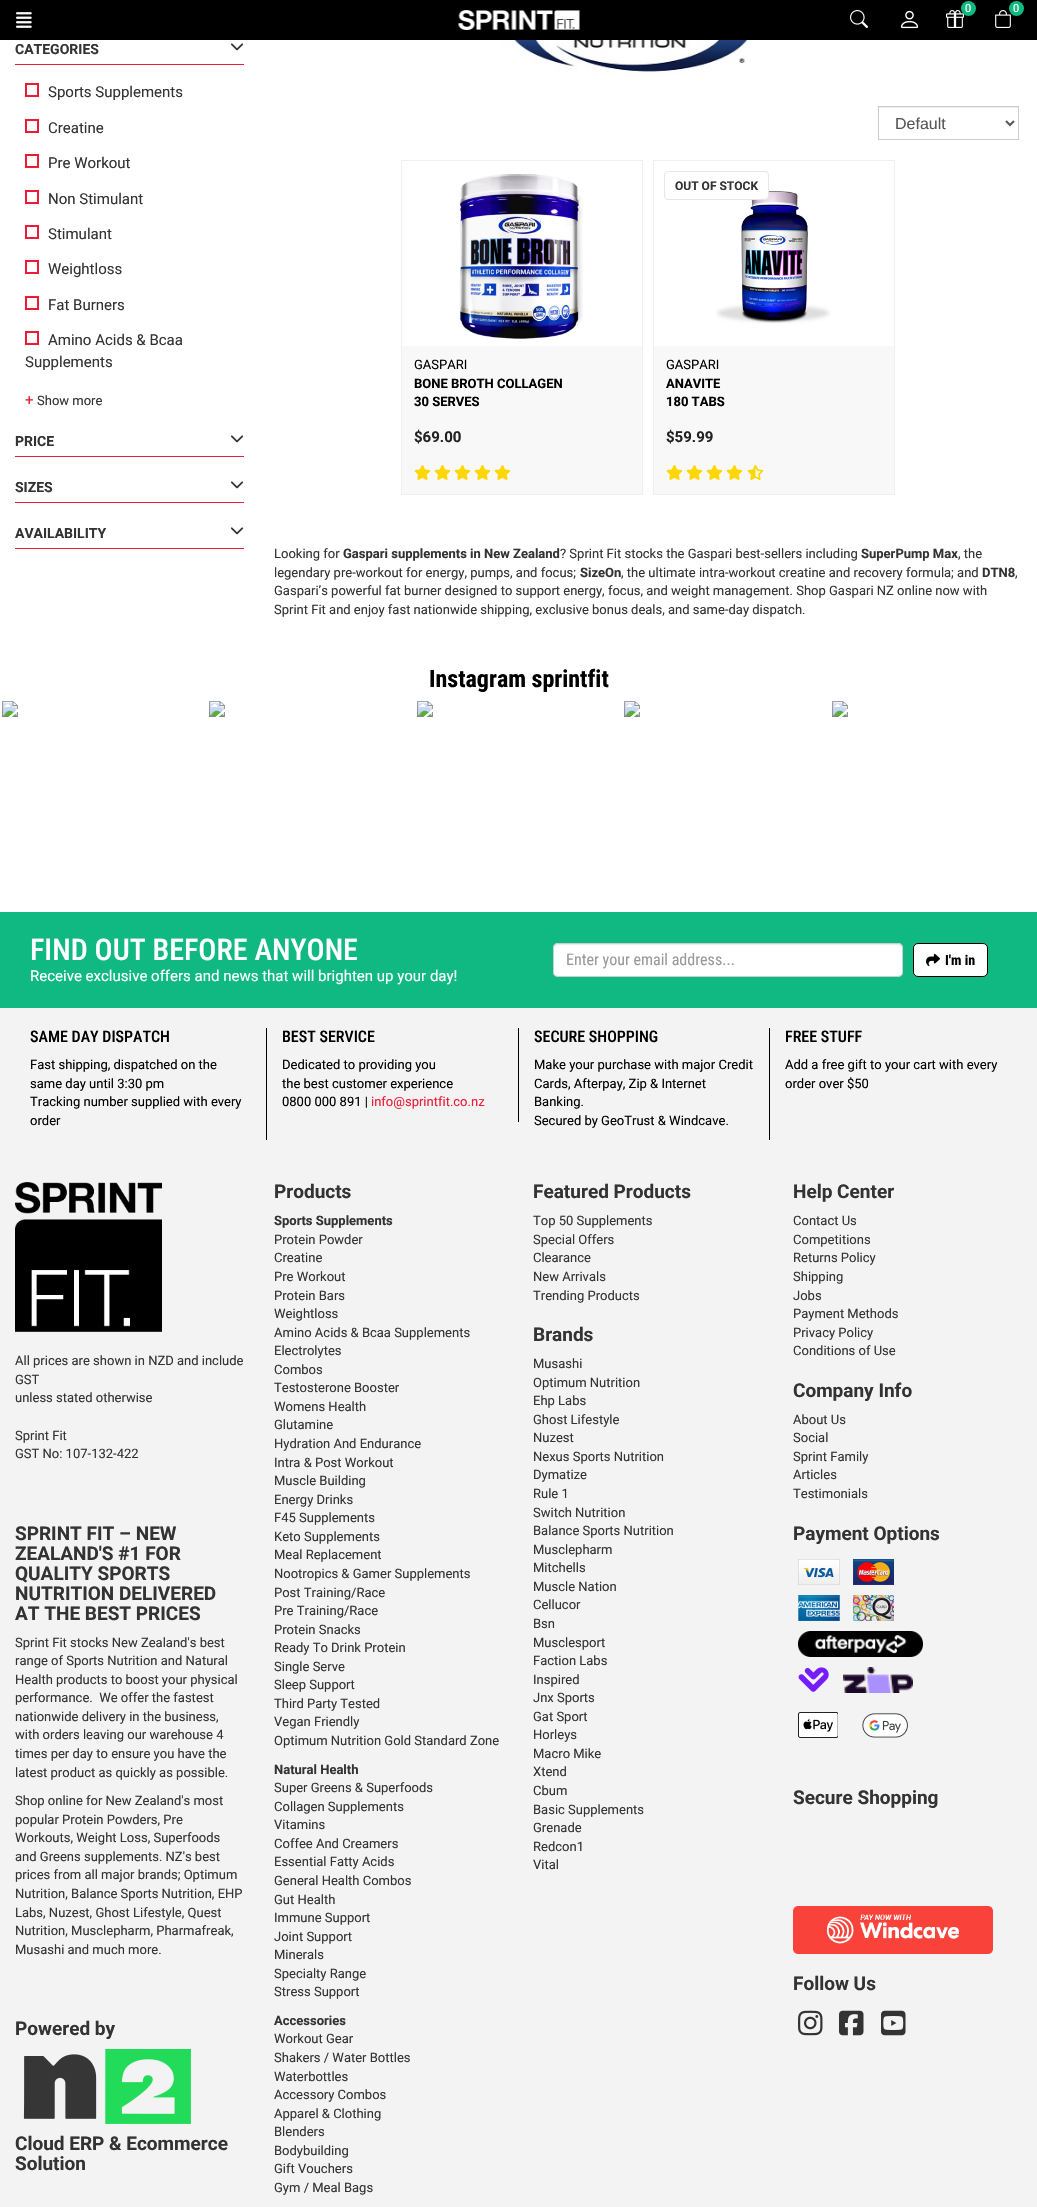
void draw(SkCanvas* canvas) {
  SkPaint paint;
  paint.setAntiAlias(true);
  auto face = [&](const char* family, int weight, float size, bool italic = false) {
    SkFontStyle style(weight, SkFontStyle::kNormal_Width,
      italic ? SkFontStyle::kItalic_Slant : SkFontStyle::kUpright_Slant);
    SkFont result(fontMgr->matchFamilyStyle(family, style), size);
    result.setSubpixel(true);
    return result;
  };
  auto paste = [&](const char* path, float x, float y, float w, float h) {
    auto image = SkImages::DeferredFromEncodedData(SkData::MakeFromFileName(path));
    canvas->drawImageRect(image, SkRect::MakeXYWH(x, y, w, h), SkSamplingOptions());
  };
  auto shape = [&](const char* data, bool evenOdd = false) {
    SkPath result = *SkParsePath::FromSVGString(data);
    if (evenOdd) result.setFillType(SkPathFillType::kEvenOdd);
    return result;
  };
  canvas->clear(0xffffffff);
  paint.setColor(0xff000000);
  canvas->drawRect(SkRect::MakeXYWH(0, 0, 1037, 40), paint);
  paste("img/1.png", 946, 10, 18, 18);
  paint.setColor(0xff10b981);
  canvas->drawCircle(968.5f, 8.5f, 7.5f, paint);
  paste("img/2.png", 995, 10, 16, 18);
  canvas->drawCircle(1016.5f, 8.5f, 7.5f, paint);
  paste("img/3.png", 850, 10, 18, 18);
  paste("img/4.png", 900, 10, 19, 19);
  paste("img/5.png", 16, 12, 16, 16);
  paste("img/6.png", 458, 10, 122, 20);
  paint.setColor(0xffed1b35);
  canvas->drawRect(SkRect::MakeXYWH(15, 64, 229, 1), paint);
  paste("img/7.png", 230, 43, 14, 8);
  paint.setStroke(true);
  paint.setStrokeWidth(2);
  canvas->drawRect(SkRect::MakeXYWH(26, 84, 12, 12), paint);
  canvas->drawRect(SkRect::MakeXYWH(26, 120, 12, 12), paint);
  canvas->drawRect(SkRect::MakeXYWH(26, 155, 12, 12), paint);
  canvas->drawRect(SkRect::MakeXYWH(26, 191, 12, 12), paint);
  canvas->drawRect(SkRect::MakeXYWH(26, 226, 12, 12), paint);
  canvas->drawRect(SkRect::MakeXYWH(26, 261, 12, 12), paint);
  canvas->drawRect(SkRect::MakeXYWH(26, 297, 12, 12), paint);
  canvas->drawRect(SkRect::MakeXYWH(26, 332, 12, 12), paint);
  paint.setStroke(false);
  canvas->drawRect(SkRect::MakeXYWH(15, 456, 229, 1), paint);
  paste("img/7.png", 230, 435, 14, 8);
  canvas->drawRect(SkRect::MakeXYWH(15, 502, 229, 1), paint);
  paste("img/7.png", 230, 481, 14, 8);
  canvas->drawRect(SkRect::MakeXYWH(15, 548, 229, 1), paint);
  paste("img/7.png", 230, 527, 14, 8);
  paste("img/8.png", 502, 40, 251, 35);
  paint.setColor(0xffececec);
  canvas->drawRect(SkRect::MakeXYWH(879, 107, 139, 1), paint);
  paint.setStroke(true);
  paint.setStrokeWidth(1);
  paint.setColor(0xffcccccc);
  canvas->drawRect(SkRect::MakeXYWH(878.5f, 106.5f, 140, 33), paint);
  paint.setStrokeWidth(2);
  paint.setColor(0xff555555);
  canvas->drawPath(shape("M1006 121L1010 125L1014 121"), paint);
  paint.setStrokeWidth(1);
  paint.setColor(0xffefefef);
  canvas->drawRect(SkRect::MakeXYWH(401.5f, 160.5f, 241, 334), paint);
  paste("img/9.png", 459, 174, 124, 165);
  paint.setStroke(false);
  paint.setColor(0xfff8f8f8);
  canvas->drawRect(SkRect::MakeXYWH(402, 346, 240, 148), paint);
  paste("img/10.png", 414, 465, 17, 15);
  paste("img/10.png", 434, 465, 17, 15);
  paste("img/10.png", 454, 465, 17, 15);
  paste("img/10.png", 474, 465, 17, 15);
  paste("img/10.png", 494, 465, 17, 15);
  paint.setStroke(true);
  paint.setColor(0xffefefef);
  canvas->drawRect(SkRect::MakeXYWH(653.5f, 160.5f, 241, 334), paint);
  paste("img/11.png", 716, 191, 115, 133);
  paint.setStroke(false);
  paint.setColor(0xffffffff);
  canvas->drawRoundRect(SkRect::MakeXYWH(664.5f, 171.5f, 104, 28), 3.5f, 3.5f, paint);
  paint.setStroke(true);
  paint.setColor(0xffe6e6e6);
  canvas->drawRoundRect(SkRect::MakeXYWH(664.5f, 171.5f, 104, 28), 3.5f, 3.5f, paint);
  paint.setStroke(false);
  paint.setColor(0xfff8f8f8);
  canvas->drawRect(SkRect::MakeXYWH(654, 346, 240, 148), paint);
  paste("img/10.png", 666, 465, 17, 15);
  paste("img/10.png", 686, 465, 17, 15);
  paste("img/10.png", 706, 465, 17, 15);
  paste("img/10.png", 726, 465, 17, 15);
  paste("img/12.png", 747, 465, 17, 15);
  paste("img/13.png", 2, 701, 846, 16);
  paint.setColor(0xff10b981);
  canvas->drawRect(SkRect::MakeXYWH(0, 912, 1037, 96), paint);
  paint.setColor(0xffffffff);
  canvas->drawRoundRect(SkRect::MakeXYWH(553, 943, 350, 34), 5, 5, paint);
  paint.setColor(0xffececec);
  canvas->drawPath(shape("M558 945H898C900 945 902 947 902 949V948C902 946 900 944 898 944H558C556 944 554 946 554 948V949C554 947 556 945 558 945Z"), paint);
  paint.setStroke(true);
  paint.setColor(0xffcccccc);
  canvas->drawRoundRect(SkRect::MakeXYWH(553.5f, 943.5f, 349, 33), 4.5f, 4.5f, paint);
  paint.setStroke(false);
  paint.setColor(0xffffffff);
  canvas->drawRoundRect(SkRect::MakeXYWH(913.5f, 943.5f, 74, 33), 4.5f, 4.5f, paint);
  paint.setStroke(true);
  paint.setColor(0xff000000);
  canvas->drawRoundRect(SkRect::MakeXYWH(913.5f, 943.5f, 74, 33), 4.5f, 4.5f, paint);
  paste("img/14.png", 926, 953, 14, 14);
  paint.setStroke(false);
  {
    const struct { float x, y, w, h; SkColor color; } items[] = {
      {0, 1008, 1037, 1199, 0xfff3f3f3},
      {266, 1028, 1, 112, 0xff000000},
      {518, 1028, 1, 94, 0xff000000},
      {769, 1028, 1, 112, 0xff000000},
    };
    for (auto [x, y, w, h, color] : items) {
      paint.setColor(color);
      canvas->drawRect(SkRect::MakeXYWH(x, y, w, h), paint);
    }
  }
  paste("img/15.png", 15, 1182, 147, 150);
  paste("img/16.png", 23, 2049, 168, 75);
  paste("img/17.png", 798, 1559, 42, 26);
  paste("img/18.png", 853, 1559, 41, 26);
  paste("img/19.png", 798, 1595, 42, 26);
  paste("img/20.png", 853, 1595, 41, 26);
  paste("img/21.png", 798, 1631, 125, 26);
  paste("img/22.png", 798, 1667, 31, 25);
  paste("img/23.png", 843, 1667, 70, 26);
  paste("img/24.png", 798, 1712, 40, 26);
  paste("img/25.png", 862, 1713, 46, 25);
  paste("img/26.png", 793, 1906, 200, 48);
  paste("img/27.png", 798, 2010, 25, 26);
  paste("img/28.png", 839, 2010, 25, 26);
  paste("img/29.png", 881, 2010, 25, 26);
  auto f0 = face("Roboto", 400, 11);
  paint.setColor(0xffffffff);
  canvas->drawString("0", 965, 12, f0, paint);
  canvas->drawString("0", 1013, 12, f0, paint);
  auto f1 = face("Roboto", 700, 14);
  paint.setColor(0xff333333);
  canvas->drawString("CATEGORIES", 15, 54, f1, paint);
  auto f2 = face("Roboto", 400, 15);
  {
    const struct { const char* s; float x, y; } items[] = {
      {"Sports Supplements", 48, 97},
      {"Creatine", 48, 133},
      {"Pre Workout", 48, 168},
      {"Non Stimulant", 48, 204},
      {"Stimulant", 48, 239},
      {"Weightloss", 48, 274},
      {"Fat Burners", 48, 310},
      {"Amino Acids & Bcaa", 48, 345},
      {"Supplements", 25, 367},
    };
    for (auto [s, x, y] : items) {
      canvas->drawString(s, x, y, f2, paint);
    }
  }
  paint.setColor(0xffed1b35);
  canvas->drawString("+", 25, 405, f2, paint);
  auto f3 = face("Roboto", 400, 13);
  paint.setColor(0xff333333);
  canvas->drawString("Show more", 37, 405, f3, paint);
  {
    const struct { const char* s; float x, y; } items[] = {
      {"PRICE", 15, 446},
      {"SIZES", 15, 492},
      {"AVAILABILITY", 15, 538},
    };
    for (auto [s, x, y] : items) {
      canvas->drawString(s, x, y, f1, paint);
    }
  }
  auto f4 = face("Liberation Sans", 400, 16);
  paint.setColor(0xff555555);
  canvas->drawString("Default", 895, 129, f4, paint);
  paint.setColor(0xff000000);
  canvas->drawString("GASPARI", 414, 369, f3, paint);
  auto f5 = face("Roboto", 700, 13);
  canvas->drawString("BONE BROTH COLLAGEN", 414, 388, f5, paint);
  canvas->drawString("30 SERVES", 414, 406, f5, paint);
  auto f6 = face("Roboto", 700, 15);
  paint.setColor(0xff222222);
  canvas->drawString("$69.00", 414, 442, f6, paint);
  auto f7 = face("Roboto", 700, 12);
  paint.setColor(0xff333333);
  canvas->drawString("OUT OF STOCK", 675, 190, f7, paint);
  paint.setColor(0xff000000);
  canvas->drawString("GASPARI", 666, 369, f3, paint);
  canvas->drawString("ANAVITE", 666, 388, f5, paint);
  canvas->drawString("180 TABS", 666, 406, f5, paint);
  paint.setColor(0xff222222);
  canvas->drawString("$59.99", 666, 442, f6, paint);
  paint.setColor(0xff333333);
  canvas->drawString("Looking for", 274, 558, f3, paint);
  canvas->drawString("Gaspari supplements in New Zealand", 343, 558, f5, paint);
  canvas->drawString("? Sprint Fit stocks the Gaspari best-sellers including", 560, 558, f3, paint);
  canvas->drawString("SuperPump Max", 861, 558, f5, paint);
  canvas->drawString(", the", 958, 558, f3, paint);
  canvas->drawString("legendary pre-workout for energy, pumps, and focus;", 274, 577, f3, paint);
  canvas->drawString("SizeOn", 580, 577, f5, paint);
  canvas->drawString(", the ultimate intra-workout creatine and recovery formula; and", 621, 577, f3, paint);
  canvas->drawString("DTN8", 982, 577, f5, paint);
  {
    const struct { const char* s; float x, y; } items[] = {
      {",", 1015, 577},
      {"Gaspari’s powerful fat burner designed to support energy, focus, and weight management. Shop Gaspari NZ online now with", 274, 595},
      {"Sprint Fit and enjoy fast nationwide shipping, exclusive bonus deals, and same-day dispatch.", 274, 614},
    };
    for (auto [s, x, y] : items) {
      canvas->drawString(s, x, y, f3, paint);
    }
  }
  auto f8 = face("Roboto Condensed", 700, 24);
  paint.setColor(0xff000000);
  canvas->drawString("Instagram sprintfit", 429, 687, f8, paint);
  auto f9 = face("Roboto Condensed", 500, 30);
  paint.setColor(0xffffffff);
  canvas->drawString("FIND OUT BEFORE ANYONE", 30, 960, f9, paint);
  canvas->drawString("Receive exclusive offers and news that will brighten up your day!", 30, 981, f2, paint);
  auto f10 = face("Roboto Condensed", 400, 16);
  paint.setColor(0xff999999);
  canvas->drawString("Enter your email address...", 566, 965, f10, paint);
  auto f11 = face("Roboto Condensed", 700, 14);
  paint.setColor(0xff000000);
  canvas->drawString("I'm in", 945, 965, f11, paint);
  auto f12 = face("Roboto Condensed", 500, 16);
  canvas->drawString("SAME DAY DISPATCH", 30, 1042, f12, paint);
  {
    const struct { const char* s; float x, y; } items[] = {
      {"Fast shipping, dispatched on the", 30, 1069},
      {"same day until 3:30 pm", 30, 1088},
      {"Tracking number supplied with every", 30, 1106},
      {"order", 30, 1125},
    };
    for (auto [s, x, y] : items) {
      canvas->drawString(s, x, y, f3, paint);
    }
  }
  canvas->drawString("BEST SERVICE", 282, 1042, f12, paint);
  {
    const struct { const char* s; float x, y; } items[] = {
      {"Dedicated to providing you", 282, 1069},
      {"the best customer experience", 282, 1088},
      {"0800 000 891 |", 282, 1106},
    };
    for (auto [s, x, y] : items) {
      canvas->drawString(s, x, y, f3, paint);
    }
  }
  paint.setColor(0xffed1b35);
  canvas->drawString("info@sprintfit.co.nz", 371, 1106, f3, paint);
  paint.setColor(0xff000000);
  canvas->drawString("SECURE SHOPPING", 534, 1042, f12, paint);
  {
    const struct { const char* s; float x, y; } items[] = {
      {"Make your purchase with major Credit", 534, 1069},
      {"Cards, Afterpay, Zip & Internet", 534, 1088},
      {"Banking.", 534, 1106},
      {"Secured by GeoTrust & Windcave.", 534, 1125},
    };
    for (auto [s, x, y] : items) {
      canvas->drawString(s, x, y, f3, paint);
    }
  }
  canvas->drawString("FREE STUFF", 785, 1042, f12, paint);
  canvas->drawString("Add a free gift to your cart with every", 785, 1069, f3, paint);
  canvas->drawString("order over $50", 785, 1088, f3, paint);
  paint.setColor(0xff333333);
  {
    const struct { const char* s; float x, y; } items[] = {
      {"All prices are shown in NZD and include", 15, 1365},
      {"GST", 15, 1384},
      {"unless stated otherwise", 15, 1402},
      {"Sprint Fit", 15, 1440},
      {"GST No: 107-132-422", 15, 1458},
    };
    for (auto [s, x, y] : items) {
      canvas->drawString(s, x, y, f3, paint);
    }
  }
  auto f13 = face("Roboto", 700, 19);
  {
    const struct { const char* s; float x, y; } items[] = {
      {"SPRINT FIT – NEW", 15, 1540},
      {"ZEALAND'S #1 FOR", 15, 1560},
      {"QUALITY SPORTS", 15, 1580},
      {"NUTRITION DELIVERED", 15, 1600},
      {"AT THE BEST PRICES", 15, 1620},
    };
    for (auto [s, x, y] : items) {
      canvas->drawString(s, x, y, f13, paint);
    }
  }
  {
    const struct { const char* s; float x, y; } items[] = {
      {"Sprint Fit stocks New Zealand's best", 15, 1647},
      {"range of Sports Nutrition and Natural", 15, 1665},
      {"Health products to boost your physical", 15, 1684},
      {"performance.  We offer the fastest", 15, 1702},
      {"nationwide delivery in the business,", 15, 1721},
      {"with orders leaving our warehouse 4", 15, 1739},
      {"times per day to ensure you have the", 15, 1758},
      {"latest product as quickly as possible.", 15, 1777},
      {"Shop online for New Zealand's most", 15, 1805},
      {"popular Protein Powders, Pre", 15, 1824},
      {"Workouts, Weight Loss, Superfoods", 15, 1842},
      {"and Greens supplements. NZ's best", 15, 1861},
      {"prices from all major brands; Optimum", 15, 1879},
      {"Nutrition, Balance Sports Nutrition, EHP", 15, 1898},
      {"Labs, Nuzest, Ghost Lifestyle, Quest", 15, 1917},
      {"Nutrition, Musclepharm, Pharmafreak,", 15, 1935},
      {"Musashi and much more.", 15, 1954},
    };
    for (auto [s, x, y] : items) {
      canvas->drawString(s, x, y, f3, paint);
    }
  }
  {
    const struct { const char* s; float x, y; } items[] = {
      {"Powered by", 15, 2035},
      {"Cloud ERP & Ecommerce", 15, 2150},
      {"Solution", 15, 2170},
      {"Products", 274, 1198},
    };
    for (auto [s, x, y] : items) {
      canvas->drawString(s, x, y, f13, paint);
    }
  }
  canvas->drawString("Sports Supplements", 274, 1225, f5, paint);
  {
    const struct { const char* s; float x, y; } items[] = {
      {"Protein Powder", 274, 1244},
      {"Creatine", 274, 1262},
      {"Pre Workout", 274, 1281},
      {"Protein Bars", 274, 1300},
      {"Weightloss", 274, 1318},
      {"Amino Acids & Bcaa Supplements", 274, 1337},
      {"Electrolytes", 274, 1355},
      {"Combos", 274, 1374},
      {"Testosterone Booster", 274, 1392},
      {"Womens Health", 274, 1411},
      {"Glutamine", 274, 1429},
      {"Hydration And Endurance", 274, 1448},
      {"Intra & Post Workout", 274, 1467},
      {"Muscle Building", 274, 1485},
      {"Energy Drinks", 274, 1504},
      {"F45 Supplements", 274, 1522},
      {"Keto Supplements", 274, 1541},
      {"Meal Replacement", 274, 1559},
      {"Nootropics & Gamer Supplements", 274, 1578},
      {"Post Training/Race", 274, 1597},
      {"Pre Training/Race", 274, 1615},
      {"Protein Snacks", 274, 1634},
      {"Ready To Drink Protein", 274, 1652},
      {"Single Serve", 274, 1671},
      {"Sleep Support", 274, 1689},
      {"Third Party Tested", 274, 1708},
      {"Vegan Friendly", 274, 1726},
      {"Optimum Nutrition Gold Standard Zone", 274, 1745},
    };
    for (auto [s, x, y] : items) {
      canvas->drawString(s, x, y, f3, paint);
    }
  }
  canvas->drawString("Natural Health", 274, 1774, f5, paint);
  {
    const struct { const char* s; float x, y; } items[] = {
      {"Super Greens & Superfoods", 274, 1792},
      {"Collagen Supplements", 274, 1811},
      {"Vitamins", 274, 1829},
      {"Coffee And Creamers", 274, 1848},
      {"Essential Fatty Acids", 274, 1866},
      {"General Health Combos", 274, 1885},
      {"Gut Health", 274, 1904},
      {"Immune Support", 274, 1922},
      {"Joint Support", 274, 1941},
      {"Minerals", 274, 1959},
      {"Specialty Range", 274, 1978},
      {"Stress Support", 274, 1996},
    };
    for (auto [s, x, y] : items) {
      canvas->drawString(s, x, y, f3, paint);
    }
  }
  canvas->drawString("Accessories", 274, 2025, f5, paint);
  {
    const struct { const char* s; float x, y; } items[] = {
      {"Workout Gear", 274, 2043},
      {"Shakers / Water Bottles", 274, 2062},
      {"Waterbottles", 274, 2081},
      {"Accessory Combos", 274, 2099},
      {"Apparel & Clothing", 274, 2118},
      {"Blenders", 274, 2136},
      {"Bodybuilding", 274, 2155},
      {"Gift Vouchers", 274, 2173},
      {"Gym / Meal Bags", 274, 2192},
    };
    for (auto [s, x, y] : items) {
      canvas->drawString(s, x, y, f3, paint);
    }
  }
  canvas->drawString("Featured Products", 533, 1198, f13, paint);
  {
    const struct { const char* s; float x, y; } items[] = {
      {"Top 50 Supplements", 533, 1225},
      {"Special Offers", 533, 1244},
      {"Clearance", 533, 1262},
      {"New Arrivals", 533, 1281},
      {"Trending Products", 533, 1300},
    };
    for (auto [s, x, y] : items) {
      canvas->drawString(s, x, y, f3, paint);
    }
  }
  canvas->drawString("Brands", 533, 1341, f13, paint);
  {
    const struct { const char* s; float x, y; } items[] = {
      {"Musashi", 533, 1368},
      {"Optimum Nutrition", 533, 1387},
      {"Ehp Labs", 533, 1405},
      {"Ghost Lifestyle", 533, 1424},
      {"Nuzest", 533, 1442},
      {"Nexus Sports Nutrition", 533, 1461},
      {"Dymatize", 533, 1479},
      {"Rule 1", 533, 1498},
      {"Switch Nutrition", 533, 1517},
      {"Balance Sports Nutrition", 533, 1535},
      {"Musclepharm", 533, 1554},
      {"Mitchells", 533, 1572},
      {"Muscle Nation", 533, 1591},
      {"Cellucor", 533, 1609},
      {"Bsn", 533, 1628},
      {"Musclesport", 533, 1647},
      {"Faction Labs", 533, 1665},
      {"Inspired", 533, 1684},
      {"Jnx Sports", 533, 1702},
      {"Gat Sport", 533, 1721},
      {"Horleys", 533, 1739},
      {"Macro Mike", 533, 1758},
      {"Xtend", 533, 1776},
      {"Cbum", 533, 1795},
      {"Basic Supplements", 533, 1814},
      {"Grenade", 533, 1832},
      {"Redcon1", 533, 1851},
      {"Vital", 533, 1869},
    };
    for (auto [s, x, y] : items) {
      canvas->drawString(s, x, y, f3, paint);
    }
  }
  canvas->drawString("Help Center", 793, 1198, f13, paint);
  {
    const struct { const char* s; float x, y; } items[] = {
      {"Contact Us", 793, 1225},
      {"Competitions", 793, 1244},
      {"Returns Policy", 793, 1262},
      {"Shipping", 793, 1281},
      {"Jobs", 793, 1300},
      {"Payment Methods", 793, 1318},
      {"Privacy Policy", 793, 1337},
      {"Conditions of Use", 793, 1355},
    };
    for (auto [s, x, y] : items) {
      canvas->drawString(s, x, y, f3, paint);
    }
  }
  canvas->drawString("Company Info", 793, 1397, f13, paint);
  {
    const struct { const char* s; float x, y; } items[] = {
      {"About Us", 793, 1424},
      {"Social", 793, 1442},
      {"Sprint Family", 793, 1461},
      {"Articles", 793, 1479},
      {"Testimonials", 793, 1498},
    };
    for (auto [s, x, y] : items) {
      canvas->drawString(s, x, y, f3, paint);
    }
  }
  {
    const struct { const char* s; float x, y; } items[] = {
      {"Payment Options", 793, 1540},
      {"Secure Shopping", 793, 1804},
      {"Follow Us", 793, 1990},
    };
    for (auto [s, x, y] : items) {
      canvas->drawString(s, x, y, f13, paint);
    }
  }
}
